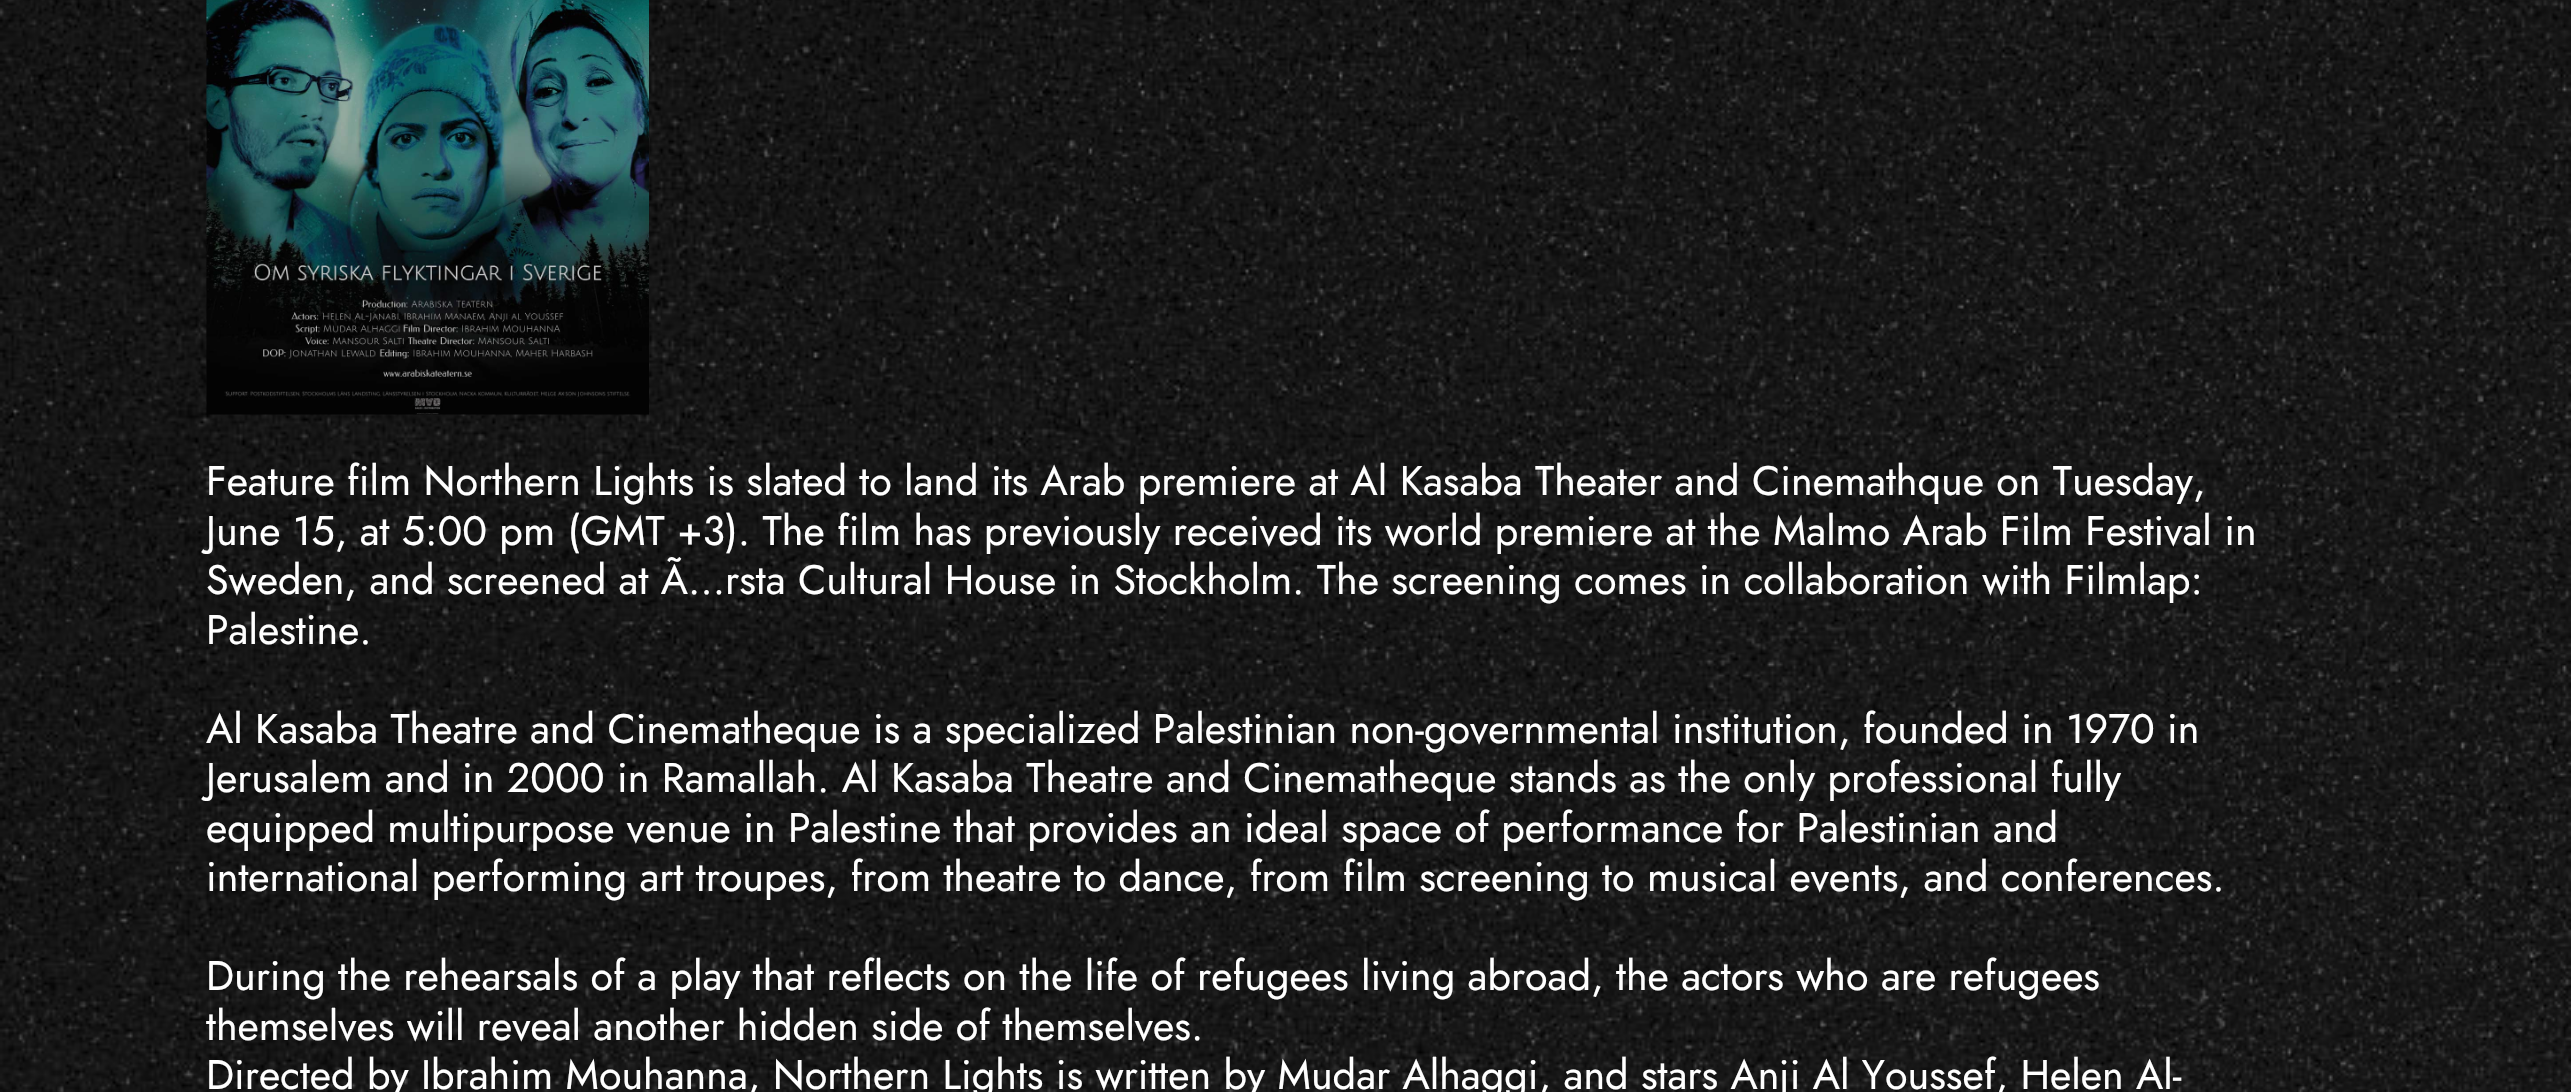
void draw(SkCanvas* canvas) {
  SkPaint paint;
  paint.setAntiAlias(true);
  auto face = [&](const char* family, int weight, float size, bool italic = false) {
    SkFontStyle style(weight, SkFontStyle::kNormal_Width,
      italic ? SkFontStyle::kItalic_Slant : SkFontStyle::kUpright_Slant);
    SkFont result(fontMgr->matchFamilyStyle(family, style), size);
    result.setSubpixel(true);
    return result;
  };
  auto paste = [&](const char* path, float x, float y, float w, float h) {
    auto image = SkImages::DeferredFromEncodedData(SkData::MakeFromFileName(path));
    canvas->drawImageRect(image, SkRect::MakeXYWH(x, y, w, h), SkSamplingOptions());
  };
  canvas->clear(0xffffffff);
  paste("img/1.png", 0, 0, 2571, 1092);
  paste("img/2.png", 206, 0, 443, 415);
  auto f0 = face("Jost", 400, 41.25f);
  paint.setColor(0xffffffff);
  {
    const struct { const char* s; float x, y; } items[] = {
      {"Feature film Northern Lights is slated to land its Arab premiere at Al Kasaba Theater and Cinemathque on Tuesday,", 206, 495},
      {"June 15, at 5:00 pm (GMT +3). The film has previously received its world premiere at the Malmo Arab Film Festival in", 206, 545},
      {"Sweden, and screened at Ã…rsta Cultural House in Stockholm. The screening comes in collaboration with Filmlap:", 206, 594},
      {"Palestine.", 206, 644},
      {"Al Kasaba Theatre and Cinematheque is a specialized Palestinian non-governmental institution, founded in 1970 in", 206, 743},
      {"Jerusalem and in 2000 in Ramallah. Al Kasaba Theatre and Cinematheque stands as the only professional fully", 206, 792},
      {"equipped multipurpose venue in Palestine that provides an ideal space of performance for Palestinian and", 206, 842},
      {"international performing art troupes, from theatre to dance, from film screening to musical events, and conferences.", 206, 891},
      {"During the rehearsals of a play that reflects on the life of refugees living abroad, the actors who are refugees", 206, 990},
      {"themselves will reveal another hidden side of themselves.", 206, 1040},
      {"Directed by Ibrahim Mouhanna, Northern Lights is written by Mudar Alhaggi, and stars Anji Al Youssef, Helen Al-", 206, 1089},
    };
    for (auto [s, x, y] : items) {
      canvas->drawString(s, x, y, f0, paint);
    }
  }
}
